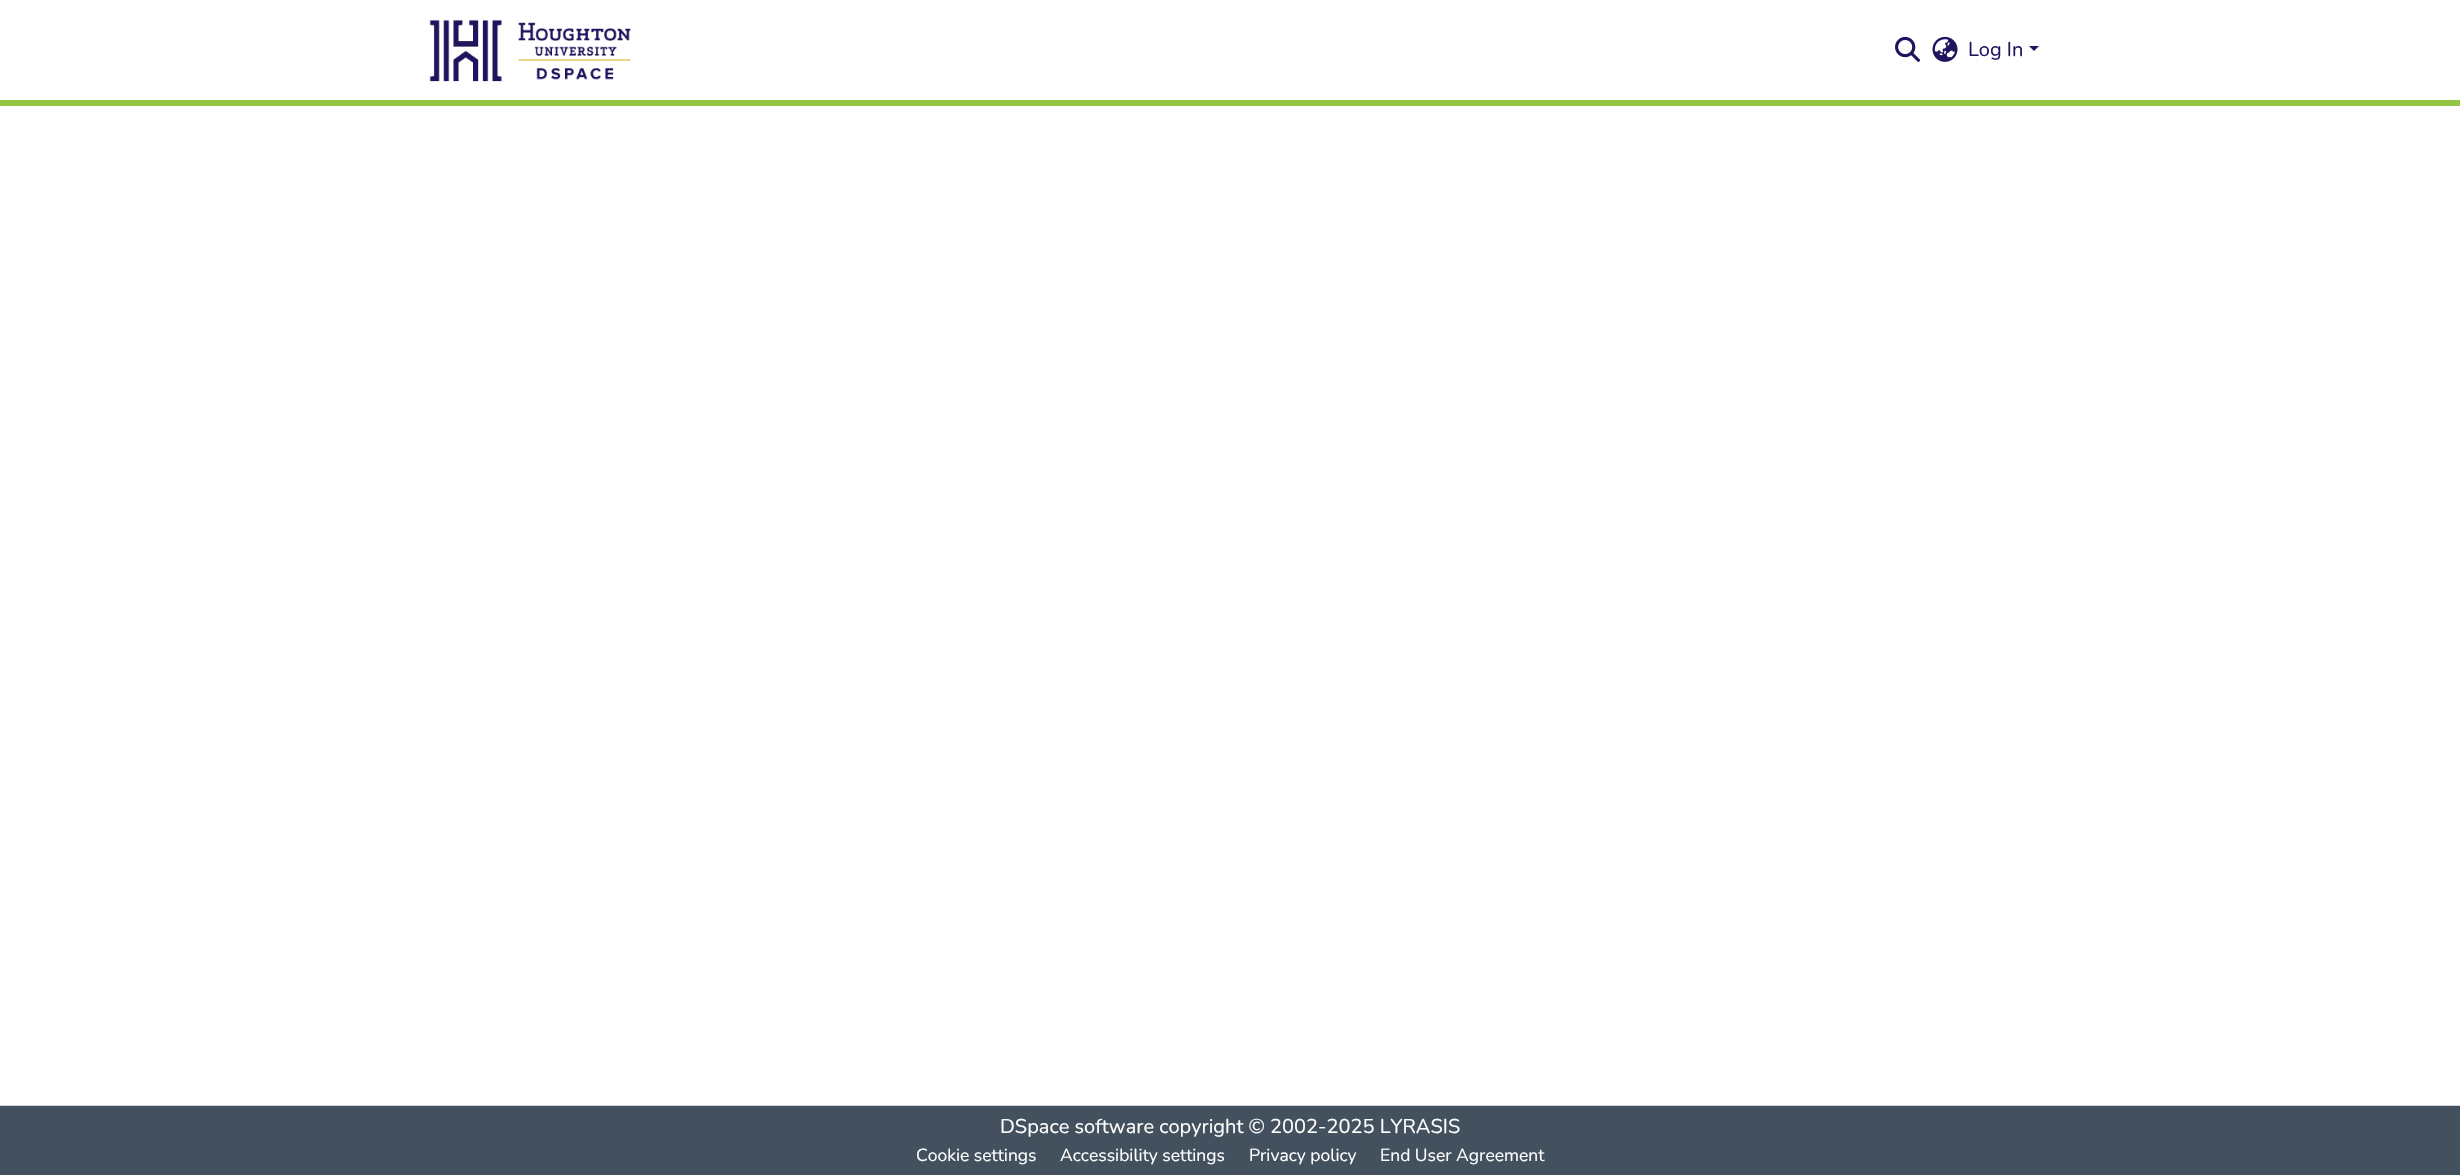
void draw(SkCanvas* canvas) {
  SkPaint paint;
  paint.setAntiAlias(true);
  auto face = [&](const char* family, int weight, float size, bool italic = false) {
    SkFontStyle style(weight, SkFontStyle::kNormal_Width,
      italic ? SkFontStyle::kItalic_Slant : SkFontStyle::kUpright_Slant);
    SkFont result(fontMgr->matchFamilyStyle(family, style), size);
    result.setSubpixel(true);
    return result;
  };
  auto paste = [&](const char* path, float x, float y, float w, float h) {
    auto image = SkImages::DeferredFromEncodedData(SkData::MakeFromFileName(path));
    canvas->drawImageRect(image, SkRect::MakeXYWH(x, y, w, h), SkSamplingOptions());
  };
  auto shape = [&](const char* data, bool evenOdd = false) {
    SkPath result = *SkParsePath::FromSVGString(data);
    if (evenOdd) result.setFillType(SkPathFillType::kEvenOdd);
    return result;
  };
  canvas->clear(0xffffffff);
  paint.setColor(0xff92c642);
  canvas->drawRect(SkRect::MakeXYWH(0, 100, 2460, 6), paint);
  paste("img/1.png", 429, 19, 202, 63);
  paste("img/2.png", 1895, 36, 25, 26);
  paste("img/3.png", 1932, 36, 26, 26);
  paint.setColor(0xff1f145d);
  canvas->drawPath(shape("M2029 46H2039L2034 51Z"), paint);
  {
    const struct { float x, y, w, h; SkColor color; } items[] = {
      {0, 1106, 2460, 69, 0xff43515f},
      {0, 1105, 2460, 1, 0xffced4da},
      {1048, 1141, 1, 29, 0xff495057},
      {1236, 1141, 1, 29, 0xff495057},
      {1368, 1141, 1, 29, 0xff495057},
    };
    for (auto [x, y, w, h, color] : items) {
      paint.setColor(color);
      canvas->drawRect(SkRect::MakeXYWH(x, y, w, h), paint);
    }
  }
  auto f0 = face("Nunito", 400, 20);
  paint.setColor(0xff1f145d);
  canvas->drawString("Log In", 1968, 56, f0, paint);
  paint.setColor(0xffffffff);
  canvas->drawString("DSpace software copyright © 2002-2025 LYRASIS", 1000, 1133, f0, paint);
  auto f1 = face("Nunito", 400, 17.5f);
  {
    const struct { const char* s; float x, y; } items[] = {
      {"Cookie settings", 916, 1161},
      {"Accessibility settings", 1060, 1161},
      {"Privacy policy", 1249, 1161},
      {"End User Agreement", 1380, 1161},
    };
    for (auto [s, x, y] : items) {
      canvas->drawString(s, x, y, f1, paint);
    }
  }
}
